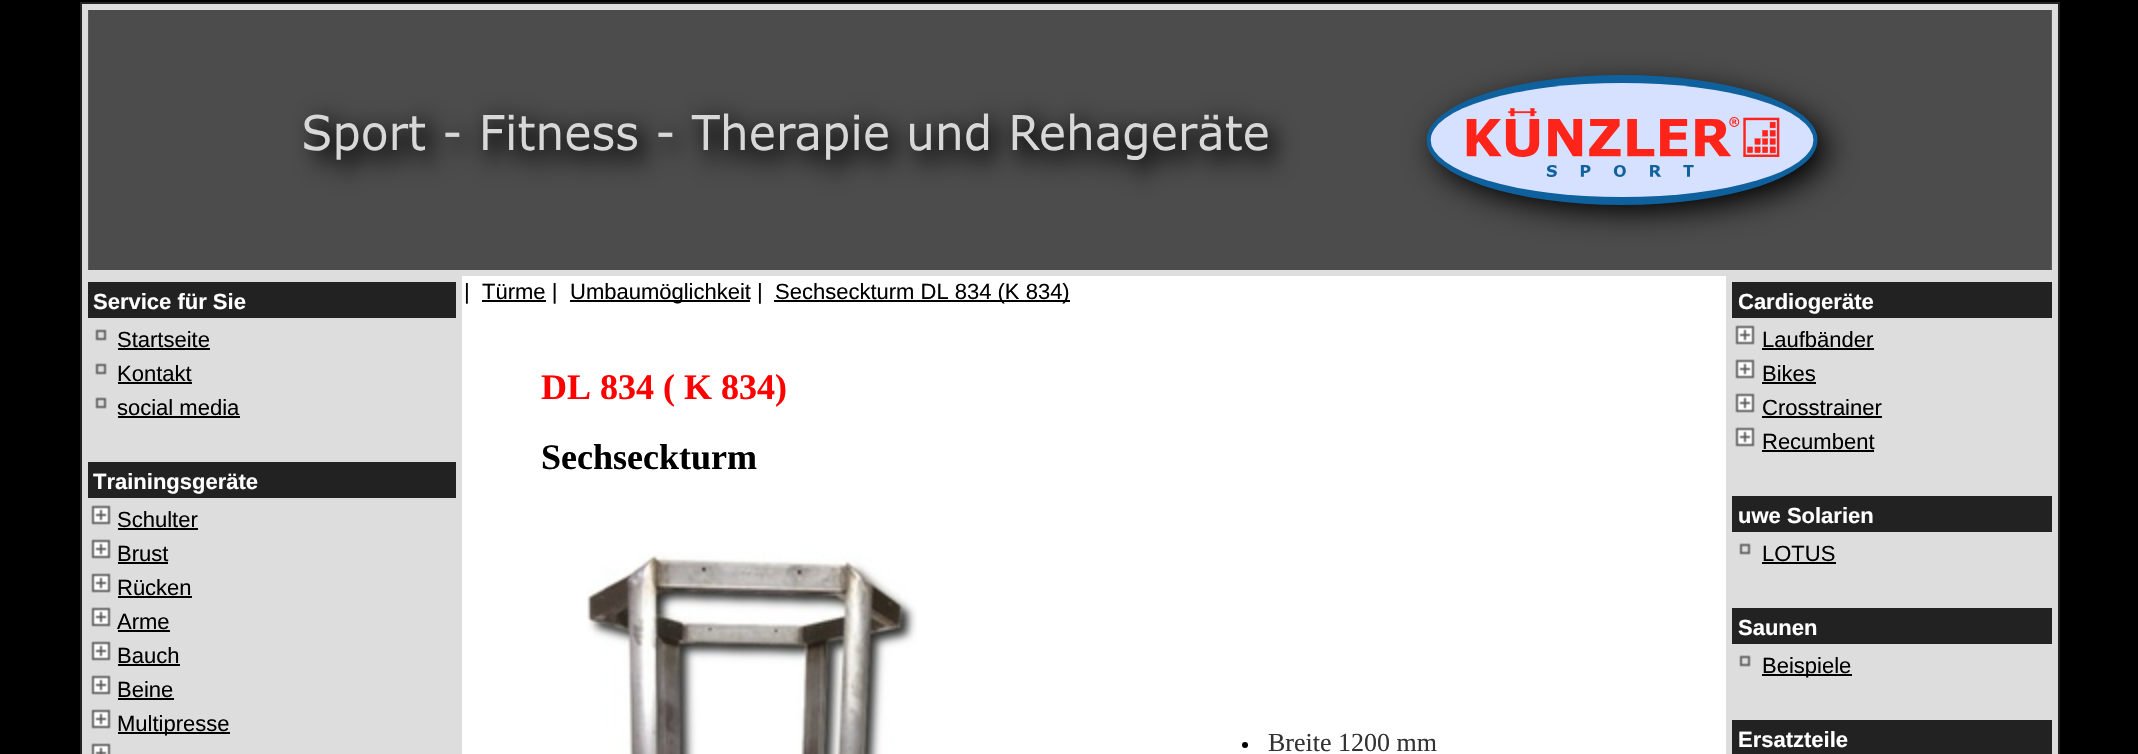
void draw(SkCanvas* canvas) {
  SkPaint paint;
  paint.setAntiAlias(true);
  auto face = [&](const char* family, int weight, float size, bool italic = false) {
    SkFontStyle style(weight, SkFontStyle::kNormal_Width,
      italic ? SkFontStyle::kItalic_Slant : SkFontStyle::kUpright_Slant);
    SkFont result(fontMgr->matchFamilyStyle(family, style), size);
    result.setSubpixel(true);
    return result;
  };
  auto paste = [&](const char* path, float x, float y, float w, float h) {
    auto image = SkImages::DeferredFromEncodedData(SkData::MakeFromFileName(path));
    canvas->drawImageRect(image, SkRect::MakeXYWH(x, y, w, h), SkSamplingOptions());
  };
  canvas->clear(0xff000000);
  paint.setColor(0xffdddddd);
  canvas->drawRect(SkRect::MakeXYWH(81, 3, 1978, 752), paint);
  paint.setStroke(true);
  paint.setStrokeWidth(2);
  paint.setColor(0xff222222);
  canvas->drawRect(SkRect::MakeXYWH(81, 3, 1978, 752), paint);
  paste("img/1.png", 88, 10, 1964, 260);
  paint.setStroke(false);
  canvas->drawRect(SkRect::MakeXYWH(88, 282, 368, 36), paint);
  paste("img/2.png", 95, 329, 12, 12);
  paint.setColor(0xff000000);
  canvas->drawRect(SkRect::MakeXYWH(118, 348, 92, 2), paint);
  paste("img/2.png", 95, 363, 12, 12);
  canvas->drawRect(SkRect::MakeXYWH(118, 382, 74, 2), paint);
  paste("img/2.png", 95, 397, 12, 12);
  canvas->drawRect(SkRect::MakeXYWH(118, 416, 122, 2), paint);
  paint.setColor(0xff222222);
  canvas->drawRect(SkRect::MakeXYWH(88, 462, 368, 36), paint);
  paste("img/3.png", 91, 505, 20, 20);
  paint.setColor(0xff000000);
  canvas->drawRect(SkRect::MakeXYWH(118, 528, 80, 2), paint);
  paste("img/3.png", 91, 539, 20, 20);
  canvas->drawRect(SkRect::MakeXYWH(118, 562, 50, 2), paint);
  paste("img/3.png", 91, 573, 20, 20);
  canvas->drawRect(SkRect::MakeXYWH(118, 596, 74, 2), paint);
  paste("img/3.png", 91, 607, 20, 20);
  canvas->drawRect(SkRect::MakeXYWH(118, 630, 52, 2), paint);
  paste("img/3.png", 91, 641, 20, 20);
  canvas->drawRect(SkRect::MakeXYWH(118, 664, 62, 2), paint);
  paste("img/3.png", 91, 675, 20, 20);
  canvas->drawRect(SkRect::MakeXYWH(118, 698, 56, 2), paint);
  paste("img/3.png", 91, 709, 20, 20);
  canvas->drawRect(SkRect::MakeXYWH(118, 732, 112, 2), paint);
  paste("img/4.png", 91, 743, 20, 11);
  {
    const struct { float x, y, w, h; SkColor color; } items[] = {
      {462, 276, 1264, 478, 0xffffffff},
      {482, 300, 64, 2, 0xff000000},
      {570, 300, 180, 2, 0xff000000},
      {774, 300, 296, 2, 0xff000000},
    };
    for (auto [x, y, w, h, color] : items) {
      paint.setColor(color);
      canvas->drawRect(SkRect::MakeXYWH(x, y, w, h), paint);
    }
  }
  paste("img/5.png", 586, 552, 331, 202);
  canvas->drawCircle(1245, 745, 3, paint);
  paint.setColor(0xff222222);
  canvas->drawRect(SkRect::MakeXYWH(1732, 282, 320, 36), paint);
  paste("img/3.png", 1735, 325, 20, 20);
  paint.setColor(0xff000000);
  canvas->drawRect(SkRect::MakeXYWH(1762, 348, 112, 2), paint);
  paste("img/3.png", 1735, 359, 20, 20);
  canvas->drawRect(SkRect::MakeXYWH(1762, 382, 54, 2), paint);
  paste("img/3.png", 1735, 393, 20, 20);
  canvas->drawRect(SkRect::MakeXYWH(1762, 416, 120, 2), paint);
  paste("img/3.png", 1735, 427, 20, 20);
  canvas->drawRect(SkRect::MakeXYWH(1762, 450, 112, 2), paint);
  paint.setColor(0xff222222);
  canvas->drawRect(SkRect::MakeXYWH(1732, 496, 320, 36), paint);
  paste("img/2.png", 1739, 543, 12, 12);
  paint.setColor(0xff000000);
  canvas->drawRect(SkRect::MakeXYWH(1762, 562, 74, 2), paint);
  paint.setColor(0xff222222);
  canvas->drawRect(SkRect::MakeXYWH(1732, 608, 320, 36), paint);
  paste("img/2.png", 1739, 655, 12, 12);
  paint.setColor(0xff000000);
  canvas->drawRect(SkRect::MakeXYWH(1762, 674, 90, 2), paint);
  paint.setColor(0xff222222);
  canvas->drawRect(SkRect::MakeXYWH(1732, 720, 320, 34), paint);
  auto f0 = face("Liberation Sans", 700, 22);
  paint.setColor(0xffffffff);
  canvas->drawString("Service für Sie", 93, 309, f0, paint);
  auto f1 = face("Liberation Sans", 400, 22);
  paint.setColor(0xff000000);
  {
    const struct { const char* s; float x, y; } items[] = {
      {"Startseite", 117, 347},
      {"Kontakt", 117, 381},
      {"social media", 117, 415},
    };
    for (auto [s, x, y] : items) {
      canvas->drawString(s, x, y, f1, paint);
    }
  }
  paint.setColor(0xffffffff);
  canvas->drawString("Trainingsgeräte", 93, 489, f0, paint);
  paint.setColor(0xff000000);
  {
    const struct { const char* s; float x, y; } items[] = {
      {"Schulter", 117, 527},
      {"Brust", 117, 561},
      {"Rücken", 117, 595},
      {"Arme", 117, 629},
      {"Bauch", 117, 663},
      {"Beine", 117, 697},
      {"Multipresse", 117, 731},
      {"|", 464, 299},
      {"Türme |", 482, 299},
      {"Umbaumöglichkeit |", 570, 299},
      {"Sechseckturm DL 834 (K 834)", 775, 299},
    };
    for (auto [s, x, y] : items) {
      canvas->drawString(s, x, y, f1, paint);
    }
  }
  auto f2 = face("Liberation Serif", 700, 36);
  paint.setColor(0xffff0000);
  canvas->drawString("DL 834 ( K 834)", 541, 399, f2, paint);
  paint.setColor(0xff000000);
  canvas->drawString("Sechseckturm", 541, 469, f2, paint);
  auto f3 = face("Liberation Serif", 400, 26);
  paint.setColor(0xff333333);
  canvas->drawString("Breite 1200 mm", 1268, 751, f3, paint);
  paint.setColor(0xffffffff);
  canvas->drawString("Cardiogeräte", 1738, 309, f0, paint);
  paint.setColor(0xff000000);
  {
    const struct { const char* s; float x, y; } items[] = {
      {"Laufbänder", 1762, 347},
      {"Bikes", 1762, 381},
      {"Crosstrainer", 1762, 415},
      {"Recumbent", 1762, 449},
    };
    for (auto [s, x, y] : items) {
      canvas->drawString(s, x, y, f1, paint);
    }
  }
  paint.setColor(0xffffffff);
  canvas->drawString("uwe Solarien", 1738, 523, f0, paint);
  paint.setColor(0xff000000);
  canvas->drawString("LOTUS", 1762, 561, f1, paint);
  paint.setColor(0xffffffff);
  canvas->drawString("Saunen", 1738, 635, f0, paint);
  paint.setColor(0xff000000);
  canvas->drawString("Beispiele", 1762, 673, f1, paint);
  paint.setColor(0xffffffff);
  canvas->drawString("Ersatzteile", 1738, 747, f0, paint);
}
